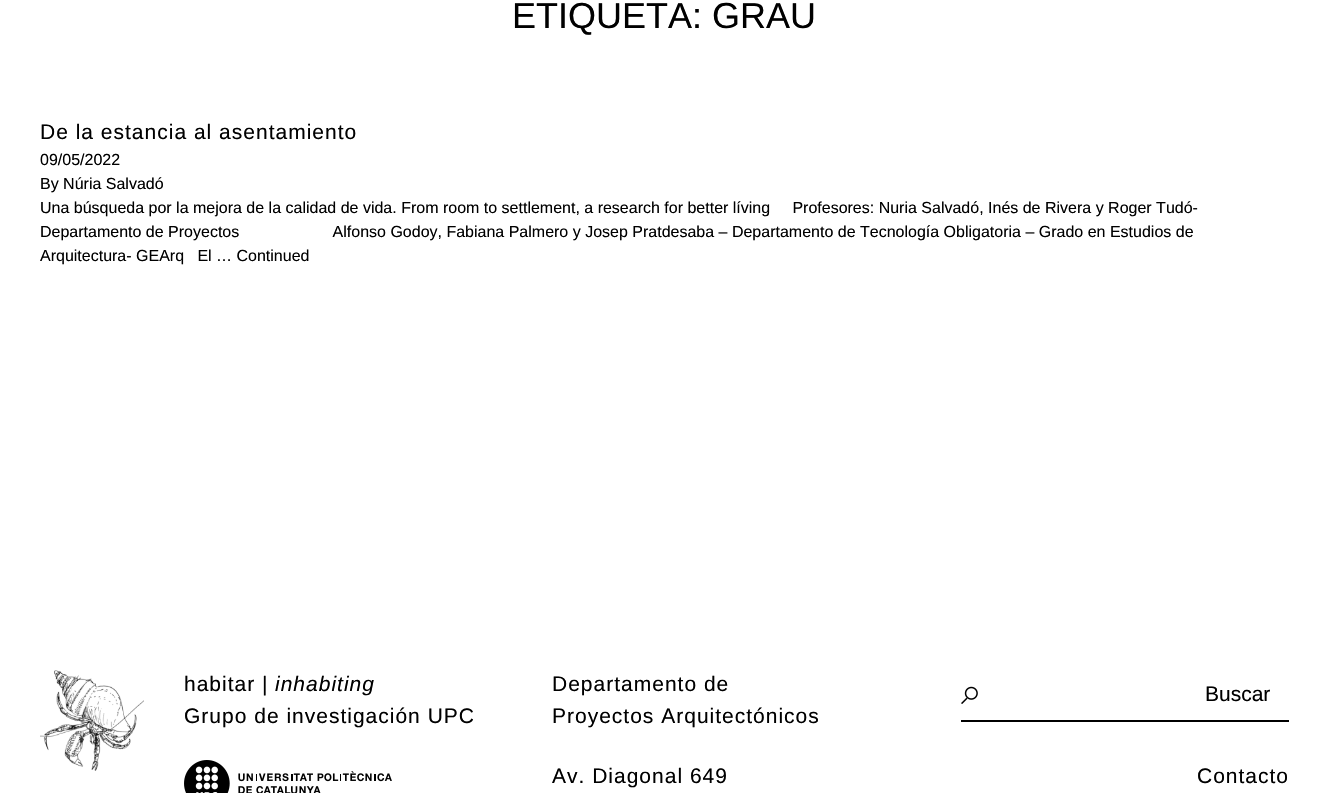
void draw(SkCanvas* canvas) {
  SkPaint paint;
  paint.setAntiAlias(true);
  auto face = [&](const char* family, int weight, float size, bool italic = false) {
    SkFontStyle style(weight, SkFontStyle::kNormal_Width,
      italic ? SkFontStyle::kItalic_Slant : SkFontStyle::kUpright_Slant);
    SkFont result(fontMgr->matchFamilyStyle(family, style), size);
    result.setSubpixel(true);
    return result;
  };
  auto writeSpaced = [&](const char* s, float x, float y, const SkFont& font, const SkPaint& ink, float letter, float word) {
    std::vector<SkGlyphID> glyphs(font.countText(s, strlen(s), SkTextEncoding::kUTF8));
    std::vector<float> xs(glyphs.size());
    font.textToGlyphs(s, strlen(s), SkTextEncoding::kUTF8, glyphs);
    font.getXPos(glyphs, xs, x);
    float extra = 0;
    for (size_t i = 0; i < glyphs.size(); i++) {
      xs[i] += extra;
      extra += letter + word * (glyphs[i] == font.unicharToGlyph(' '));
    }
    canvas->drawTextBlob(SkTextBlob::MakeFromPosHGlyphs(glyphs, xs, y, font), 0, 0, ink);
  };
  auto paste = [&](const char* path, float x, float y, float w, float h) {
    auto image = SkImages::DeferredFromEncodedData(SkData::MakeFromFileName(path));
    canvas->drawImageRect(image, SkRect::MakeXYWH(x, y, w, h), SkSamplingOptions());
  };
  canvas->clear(0xffffffff);
  paste("img/1.png", 40, 670, 104, 101);
  paint.setColor(0xff000000);
  canvas->drawRect(SkRect::MakeXYWH(961, 720, 328, 2), paint);
  paste("img/2.png", 961, 686, 17, 18);
  paste("img/3.png", 184, 760, 208, 33);
  auto f0 = face("Liberation Sans", 400, 36);
  canvas->drawString("ETIQUETA: GRAU", 512, 28, f0, paint);
  auto f1 = face("Liberation Sans", 400, 21);
  writeSpaced("De la estancia al asentamiento", 40, 139, f1, paint, 1, 0);
  auto f2 = face("Liberation Sans", 400, 16);
  {
    const struct { const char* s; float x, y; } items[] = {
      {"09/05/2022", 40, 165},
      {"By Núria Salvadó", 40, 189},
      {"Una búsqueda por la mejora de la calidad de vida. From room to settlement, a research for better líving     Profesores: Nuria Salvadó, Inés de Rivera y Roger Tudó-", 40, 213},
      {"Departamento de Proyectos                     Alfonso Godoy, Fabiana Palmero y Josep Pratdesaba – Departamento de Tecnología Obligatoria – Grado en Estudios de", 40, 237},
      {"Arquitectura- GEArq   El … Continued", 40, 261},
    };
    for (auto [s, x, y] : items) {
      canvas->drawString(s, x, y, f2, paint);
    }
  }
  writeSpaced("habitar |", 184, 691, f1, paint, 1, 0);
  auto f3 = face("Liberation Sans", 400, 21, true);
  writeSpaced("inhabiting", 275, 691, f3, paint, 1, 0);
  {
    const struct { const char* s; float x, y; } items[] = {
      {"Grupo de investigación UPC", 184, 723},
      {"Departamento de", 552, 691},
      {"Proyectos Arquitectónicos", 552, 723},
    };
    for (auto [s, x, y] : items) {
      writeSpaced(s, x, y, f1, paint, 1, 0);
    }
  }
  canvas->drawString("Buscar", 1205, 701, f1, paint);
  writeSpaced("Av. Diagonal 649", 552, 783, f1, paint, 1, 0);
  writeSpaced("Contacto", 1197, 783, f1, paint, 1, 0);
}
